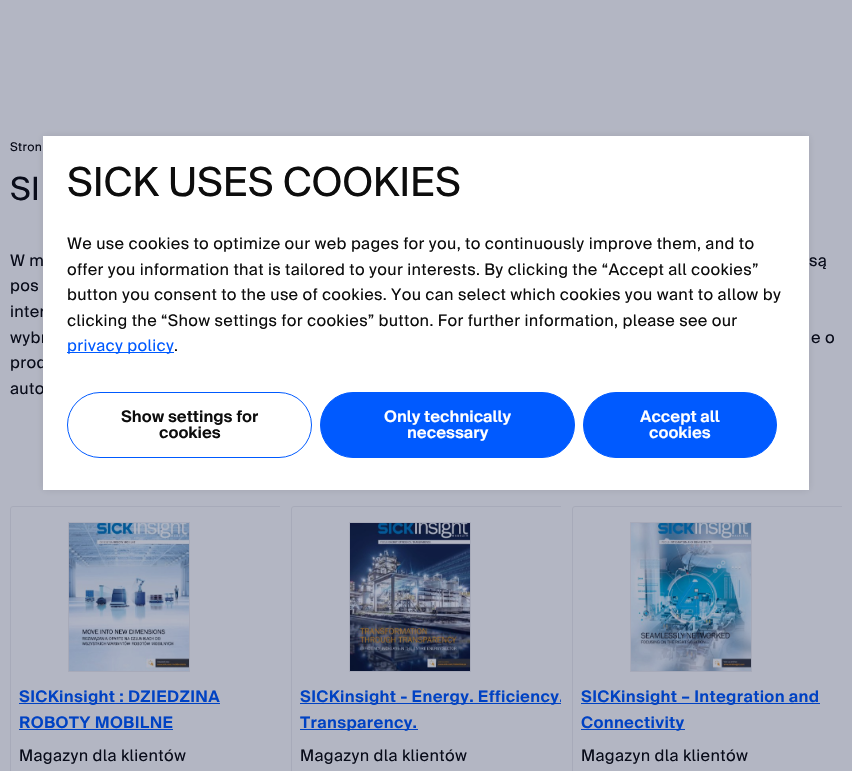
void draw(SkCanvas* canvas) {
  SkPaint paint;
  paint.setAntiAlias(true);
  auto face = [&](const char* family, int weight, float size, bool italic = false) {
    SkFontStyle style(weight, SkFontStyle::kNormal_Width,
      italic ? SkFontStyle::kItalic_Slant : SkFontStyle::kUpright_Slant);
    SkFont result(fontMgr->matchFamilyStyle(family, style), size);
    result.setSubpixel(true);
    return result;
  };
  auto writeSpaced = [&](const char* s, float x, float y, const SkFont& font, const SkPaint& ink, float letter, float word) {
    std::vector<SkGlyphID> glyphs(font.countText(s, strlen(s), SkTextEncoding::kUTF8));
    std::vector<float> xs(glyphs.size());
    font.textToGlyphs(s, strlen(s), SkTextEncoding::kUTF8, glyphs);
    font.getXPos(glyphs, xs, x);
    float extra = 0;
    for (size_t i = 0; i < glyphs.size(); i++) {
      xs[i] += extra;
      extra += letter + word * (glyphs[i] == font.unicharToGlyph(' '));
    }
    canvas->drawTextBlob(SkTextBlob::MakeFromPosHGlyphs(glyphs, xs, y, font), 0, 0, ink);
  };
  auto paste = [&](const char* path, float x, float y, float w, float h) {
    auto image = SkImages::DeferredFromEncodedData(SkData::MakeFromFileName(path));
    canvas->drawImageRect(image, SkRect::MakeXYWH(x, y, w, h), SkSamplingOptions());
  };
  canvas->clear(0xffb3b6c3);
  canvas->save();
  canvas->clipRect(SkRect::MakeXYWH(10, 506, 270, 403));
  paint.setStroke(true);
  paint.setStrokeWidth(1);
  paint.setColor(0xffa7aab9);
  canvas->drawRoundRect(SkRect::MakeXYWH(10.5f, 506.5f, 283, 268), 2.5f, 2.5f, paint);
  canvas->restore();
  canvas->drawRect(SkRect::MakeXYWH(68.5f, 522.5f, 121, 149), paint);
  paste("img/1.png", 69, 523, 120, 148);
  paint.setStroke(false);
  paint.setColor(0xff0042c3);
  canvas->drawRect(SkRect::MakeXYWH(19, 703, 201, 1), paint);
  canvas->drawRect(SkRect::MakeXYWH(19, 729, 154, 1), paint);
  canvas->save();
  canvas->clipRect(SkRect::MakeXYWH(291, 506, 270, 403));
  paint.setStroke(true);
  paint.setColor(0xffa7aab9);
  canvas->drawRoundRect(SkRect::MakeXYWH(291.5f, 506.5f, 283, 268), 2.5f, 2.5f, paint);
  canvas->restore();
  canvas->drawRect(SkRect::MakeXYWH(349.5f, 522.5f, 121, 149), paint);
  paste("img/2.png", 350, 523, 120, 148);
  paint.setStroke(false);
  paint.setColor(0xff0042c3);
  canvas->drawRect(SkRect::MakeXYWH(300, 703, 261, 1), paint);
  canvas->drawRect(SkRect::MakeXYWH(300, 729, 118, 1), paint);
  canvas->save();
  canvas->clipRect(SkRect::MakeXYWH(572, 506, 270, 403));
  paint.setStroke(true);
  paint.setColor(0xffa7aab9);
  canvas->drawRoundRect(SkRect::MakeXYWH(572.5f, 506.5f, 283, 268), 2.5f, 2.5f, paint);
  canvas->restore();
  canvas->drawRect(SkRect::MakeXYWH(630.5f, 522.5f, 121, 149), paint);
  paste("img/3.png", 631, 523, 120, 148);
  paint.setStroke(false);
  paint.setColor(0xff0042c3);
  canvas->drawRect(SkRect::MakeXYWH(581, 703, 239, 1), paint);
  canvas->drawRect(SkRect::MakeXYWH(581, 729, 104, 1), paint);
  paint.setColor(0x1a0d0d0d);
  paint.setMaskFilter(SkMaskFilter::MakeBlur(kNormal_SkBlurStyle, 4));
  canvas->drawRect(SkRect::MakeXYWH(43, 136, 766, 354), paint);
  paint.setMaskFilter(nullptr);
  auto f0 = face("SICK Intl", 400, 12);
  paint.setColor(0xff090c1a);
  writeSpaced("Stron", 10, 151, f0, paint, 0.32f, 0);
  auto f1 = face("SICK Intl", 400, 32);
  writeSpaced("SI", 10, 200, f1, paint, 0.32f, 0);
  auto f2 = face("SICK Intl", 400, 16);
  {
    const struct { const char* s; float x, y; } items[] = {
      {"W m", 10, 266},
      {"są", 809, 266},
      {"pos", 10, 291},
      {"inter", 10, 317},
      {"wybr", 10, 343},
      {"e o", 811, 343},
      {"prod", 10, 368},
      {"auto", 10, 394},
    };
    for (auto [s, x, y] : items) {
      writeSpaced(s, x, y, f2, paint, 0.32f, 0);
    }
  }
  auto f3 = face("SICK Intl", 600, 16);
  paint.setColor(0xff0042c3);
  writeSpaced("SICKinsight : DZIEDZINA", 19, 702, f3, paint, 0.32f, 0);
  writeSpaced("ROBOTY MOBILNE", 19, 728, f3, paint, 0.32f, 0);
  paint.setColor(0xff090c1a);
  writeSpaced("Magazyn dla klientów", 19, 761, f2, paint, 0.32f, 0);
  canvas->save();
  canvas->clipRect(SkRect::MakeXYWH(300, 685, 261, 51));
  paint.setColor(0xff0042c3);
  writeSpaced("SICKinsight - Energy. Efficiency.", 300, 702, f3, paint, 0.32f, 0);
  canvas->restore();
  writeSpaced("Transparency.", 300, 728, f3, paint, 0.32f, 0);
  paint.setColor(0xff090c1a);
  writeSpaced("Magazyn dla klientów", 300, 761, f2, paint, 0.32f, 0);
  paint.setColor(0xff0042c3);
  writeSpaced("SICKinsight – Integration and", 581, 702, f3, paint, 0.32f, 0);
  writeSpaced("Connectivity", 581, 728, f3, paint, 0.32f, 0);
  paint.setColor(0xff090c1a);
  writeSpaced("Magazyn dla klientów", 581, 761, f2, paint, 0.32f, 0);
  paint.setColor(0xffffffff);
  canvas->drawRect(SkRect::MakeXYWH(43, 136, 766, 354), paint);
  auto f4 = face("SICK Intl", 400, 40);
  paint.setColor(0xff0d0d0d);
  writeSpaced("SICK USES COOKIES", 67, 196, f4, paint, -0.25f, 0);
  {
    const struct { const char* s; float x, y; } items[] = {
      {"We use cookies to optimize our web pages for you, to continuously improve them, and to", 67, 249},
      {"offer you information that is tailored to your interests. By clicking the “Accept all cookies”", 67, 275},
      {"button you consent to the use of cookies. You can select which cookies you want to allow by", 67, 300},
      {"clicking the “Show settings for cookies” button. For further information, please see our", 67, 326},
    };
    for (auto [s, x, y] : items) {
      writeSpaced(s, x, y, f2, paint, 0.32f, 0);
    }
  }
  paint.setColor(0xff005aff);
  canvas->drawRect(SkRect::MakeXYWH(67, 352, 107, 1), paint);
  writeSpaced("privacy policy", 67, 351, f2, paint, 0.32f, 0);
  paint.setColor(0xff0d0d0d);
  writeSpaced(".", 174, 351, f2, paint, 0.32f, 0);
  paint.setStroke(true);
  paint.setColor(0xff005aff);
  canvas->drawRoundRect(SkRect::MakeXYWH(67.5f, 392.5f, 244, 65), 32.5f, 32.5f, paint);
  paint.setStroke(false);
  paint.setColor(0xff0d0d0d);
  canvas->drawString("Show settings for", 121, 422, f3, paint);
  canvas->drawString("cookies", 159, 438, f3, paint);
  paint.setColor(0xff005aff);
  canvas->drawRoundRect(SkRect::MakeXYWH(320.5f, 392.5f, 254, 65), 32.5f, 32.5f, paint);
  paint.setStroke(true);
  canvas->drawRoundRect(SkRect::MakeXYWH(320.5f, 392.5f, 254, 65), 32.5f, 32.5f, paint);
  paint.setStroke(false);
  paint.setColor(0xffffffff);
  canvas->drawString("Only technically", 384, 422, f3, paint);
  canvas->drawString("necessary", 407, 438, f3, paint);
  paint.setColor(0xff005aff);
  canvas->drawRoundRect(SkRect::MakeXYWH(583.5f, 392.5f, 193, 65), 32.5f, 32.5f, paint);
  paint.setStroke(true);
  canvas->drawRoundRect(SkRect::MakeXYWH(583.5f, 392.5f, 193, 65), 32.5f, 32.5f, paint);
  paint.setStroke(false);
  paint.setColor(0xffffffff);
  canvas->drawString("Accept all", 640, 422, f3, paint);
  canvas->drawString("cookies", 649, 438, f3, paint);
}
